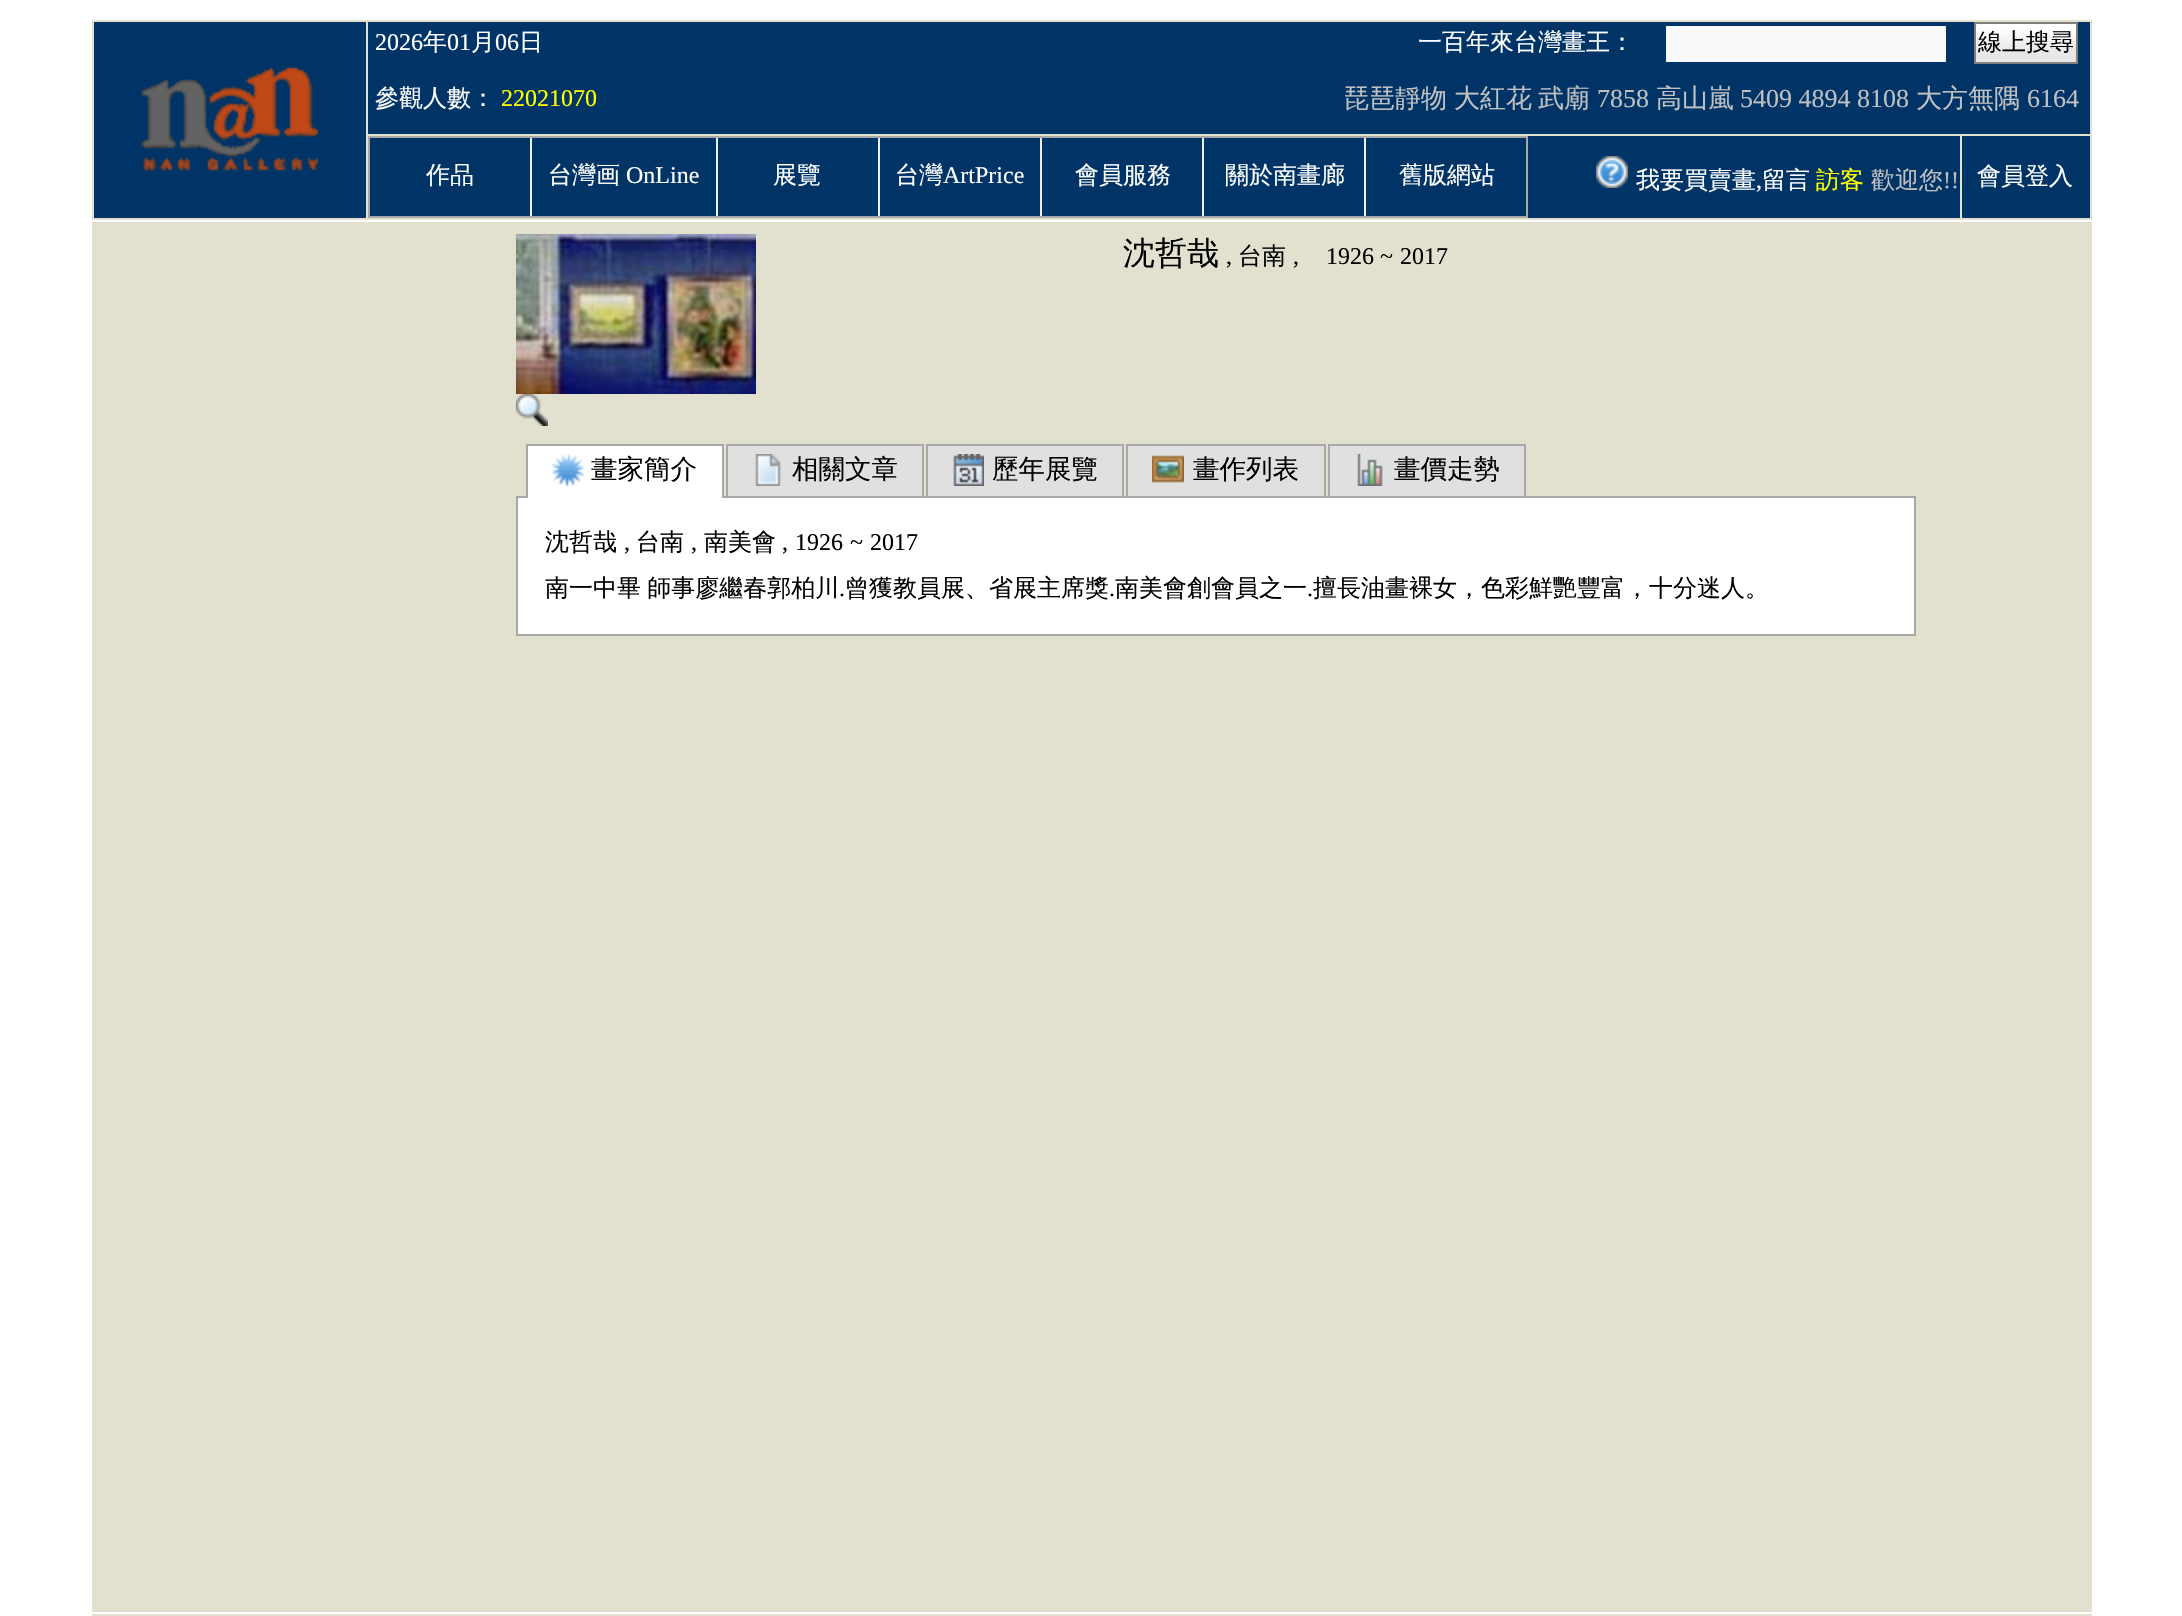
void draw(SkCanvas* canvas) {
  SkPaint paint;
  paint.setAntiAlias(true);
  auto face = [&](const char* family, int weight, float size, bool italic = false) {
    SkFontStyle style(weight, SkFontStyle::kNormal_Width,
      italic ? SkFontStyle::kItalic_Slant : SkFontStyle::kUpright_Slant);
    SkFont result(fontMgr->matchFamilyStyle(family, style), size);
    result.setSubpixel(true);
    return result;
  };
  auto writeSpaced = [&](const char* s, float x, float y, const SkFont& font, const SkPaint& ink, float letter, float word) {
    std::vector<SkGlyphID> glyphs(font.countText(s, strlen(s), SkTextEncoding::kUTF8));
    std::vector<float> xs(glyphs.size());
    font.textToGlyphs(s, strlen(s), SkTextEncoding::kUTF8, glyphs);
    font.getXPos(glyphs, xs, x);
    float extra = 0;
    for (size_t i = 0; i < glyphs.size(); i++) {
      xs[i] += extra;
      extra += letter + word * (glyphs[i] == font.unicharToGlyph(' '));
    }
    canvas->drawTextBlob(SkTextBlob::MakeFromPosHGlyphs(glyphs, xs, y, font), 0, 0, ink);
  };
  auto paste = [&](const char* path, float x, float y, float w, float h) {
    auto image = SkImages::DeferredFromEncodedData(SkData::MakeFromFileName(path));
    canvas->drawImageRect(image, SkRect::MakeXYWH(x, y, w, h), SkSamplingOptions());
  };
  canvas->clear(0xffffffff);
  paint.setColor(0xffe2e1cf);
  canvas->drawRect(SkRect::MakeXYWH(92, 20, 2000, 1596), paint);
  paint.setColor(0xff003366);
  canvas->drawRect(SkRect::MakeXYWH(94, 22, 272, 196), paint);
  paste("img/1.png", 141, 67, 178, 104);
  canvas->drawRect(SkRect::MakeXYWH(368, 22, 1722, 112), paint);
  paint.setColor(0xfffafafa);
  canvas->drawRect(SkRect::MakeXYWH(1666, 26, 280, 36), paint);
  paste("img/2.png", 1976, 24, 100, 38);
  {
    const struct { float x, y, w, h; SkColor color; } items[] = {
      {1974, 22, 104, 2, 0xff7f7f7f},
      {2076, 22, 2, 42, 0xff7f7f7f},
      {1974, 62, 104, 2, 0xff7f7f7f},
      {1974, 22, 2, 42, 0xff7f7f7f},
      {1528, 136, 562, 82, 0xff003366},
      {530, 138, 836, 78, 0xfff0f0f0},
    };
    for (auto [x, y, w, h, color] : items) {
      paint.setColor(color);
      canvas->drawRect(SkRect::MakeXYWH(x, y, w, h), paint);
    }
  }
  paint.setStroke(true);
  paint.setStrokeWidth(2);
  paint.setColor(0xffa8a8a8);
  canvas->drawRect(SkRect::MakeXYWH(369, 137, 1158, 80), paint);
  paint.setStroke(false);
  {
    const struct { float x, y, w, h; SkColor color; } items[] = {
      {370, 138, 160, 78, 0xff003366},
      {532, 138, 184, 78, 0xff003366},
      {718, 138, 160, 78, 0xff003366},
      {880, 138, 160, 78, 0xff003366},
      {1042, 138, 160, 78, 0xff003366},
      {1204, 138, 160, 78, 0xff003366},
      {1366, 138, 160, 78, 0xff003366},
      {1960, 136, 2, 82, 0xffe2e1cf},
    };
    for (auto [x, y, w, h, color] : items) {
      paint.setColor(color);
      canvas->drawRect(SkRect::MakeXYWH(x, y, w, h), paint);
    }
  }
  paste("img/3.png", 1596, 156, 32, 32);
  paint.setColor(0xffffffff);
  canvas->drawRect(SkRect::MakeXYWH(92, 220, 2000, 2), paint);
  canvas->drawRect(SkRect::MakeXYWH(92, 1612, 2000, 2), paint);
  paste("img/4.png", 516, 234, 240, 160);
  paste("img/5.png", 516, 394, 32, 32);
  {
    const struct { float x, y, w, h; SkColor color; } items[] = {
      {528, 446, 194, 52, 0xffffffff},
      {526, 444, 198, 2, 0xffa8a8a8},
      {722, 444, 2, 54, 0xffa8a8a8},
      {526, 444, 2, 54, 0xffa8a8a8},
    };
    for (auto [x, y, w, h, color] : items) {
      paint.setColor(color);
      canvas->drawRect(SkRect::MakeXYWH(x, y, w, h), paint);
    }
  }
  paste("img/6.png", 552, 454, 32, 32);
  paint.setColor(0xffe0e0e0);
  canvas->drawRect(SkRect::MakeXYWH(727, 445, 196, 52), paint);
  paint.setStroke(true);
  paint.setColor(0xffa8a8a8);
  canvas->drawRect(SkRect::MakeXYWH(727, 445, 196, 52), paint);
  paste("img/7.png", 755, 454, 26, 32);
  paint.setStroke(false);
  paint.setColor(0xffe0e0e0);
  canvas->drawRect(SkRect::MakeXYWH(927, 445, 196, 52), paint);
  paint.setStroke(true);
  paint.setColor(0xffa8a8a8);
  canvas->drawRect(SkRect::MakeXYWH(927, 445, 196, 52), paint);
  paste("img/8.png", 953, 454, 31, 32);
  paint.setStroke(false);
  paint.setColor(0xffe0e0e0);
  canvas->drawRect(SkRect::MakeXYWH(1127, 445, 198, 52), paint);
  paint.setStroke(true);
  paint.setColor(0xffa8a8a8);
  canvas->drawRect(SkRect::MakeXYWH(1127, 445, 198, 52), paint);
  paste("img/9.png", 1152, 455, 32, 28);
  paint.setStroke(false);
  paint.setColor(0xffe0e0e0);
  canvas->drawRect(SkRect::MakeXYWH(1329, 445, 196, 52), paint);
  paint.setStroke(true);
  paint.setColor(0xffa8a8a8);
  canvas->drawRect(SkRect::MakeXYWH(1329, 445, 196, 52), paint);
  paste("img/10.png", 1357, 454, 26, 32);
  paint.setStroke(false);
  {
    const struct { float x, y, w, h; SkColor color; } items[] = {
      {516, 496, 10, 2, 0xffa8a8a8},
      {724, 496, 2, 2, 0xffa8a8a8},
      {924, 496, 2, 2, 0xffa8a8a8},
      {1124, 496, 2, 2, 0xffa8a8a8},
      {1326, 496, 2, 2, 0xffa8a8a8},
      {1526, 496, 390, 2, 0xffa8a8a8},
      {518, 498, 1396, 136, 0xffffffff},
      {1914, 498, 2, 138, 0xffa8a8a8},
      {516, 634, 1400, 2, 0xffa8a8a8},
      {516, 498, 2, 138, 0xffa8a8a8},
    };
    for (auto [x, y, w, h, color] : items) {
      paint.setColor(color);
      canvas->drawRect(SkRect::MakeXYWH(x, y, w, h), paint);
    }
  }
  auto f0 = face("Liberation Serif", 400, 24);
  paint.setColor(0xffffffff);
  canvas->drawString("2026", 375, 50, f0, paint);
  auto f1 = face("WenQuanYi Zen Hei", 500, 24);
  canvas->drawString("年", 423, 50, f1, paint);
  canvas->drawString("01", 447, 50, f0, paint);
  canvas->drawString("月", 471, 50, f1, paint);
  canvas->drawString("06", 495, 50, f0, paint);
  canvas->drawString("日", 519, 50, f1, paint);
  canvas->drawString("一百年來台灣畫王：", 1418, 50, f1, paint);
  paint.setColor(0xff000000);
  canvas->drawString("線上搜尋", 1978, 50, f1, paint);
  paint.setColor(0xffffffff);
  canvas->drawString("參觀人數：", 375, 106, f1, paint);
  paint.setColor(0xffffff00);
  canvas->drawString("22021070", 501, 106, f0, paint);
  auto f2 = face("WenQuanYi Zen Hei", 500, 26);
  paint.setColor(0xffc0c0c0);
  {
    const struct { const char* s; float x, y; } items[] = {
      {"琵琶靜物", 1343, 107},
      {"大紅花", 1454, 107},
      {"武廟", 1538, 107},
    };
    for (auto [s, x, y] : items) {
      canvas->drawString(s, x, y, f2, paint);
    }
  }
  auto f3 = face("Liberation Serif", 400, 26);
  canvas->drawString("7858", 1597, 107, f3, paint);
  canvas->drawString("高山嵐", 1656, 107, f2, paint);
  canvas->drawString("5409 4894 8108", 1740, 107, f3, paint);
  canvas->drawString("大方無隅", 1916, 107, f2, paint);
  canvas->drawString("6164", 2027, 107, f3, paint);
  paint.setColor(0xffffffff);
  canvas->drawString("作品", 426, 183, f1, paint);
  canvas->drawString("台灣画", 548, 183, f1, paint);
  canvas->drawString("OnLine", 626, 183, f0, paint);
  canvas->drawString("展覽", 773, 183, f1, paint);
  canvas->drawString("台灣", 895, 183, f1, paint);
  canvas->drawString("ArtPrice", 943, 183, f0, paint);
  {
    const struct { const char* s; float x, y; } items[] = {
      {"會員服務", 1075, 183},
      {"關於南畫廊", 1225, 183},
      {"舊版網站", 1399, 183},
      {"我要買賣畫", 1636, 188},
    };
    for (auto [s, x, y] : items) {
      canvas->drawString(s, x, y, f1, paint);
    }
  }
  canvas->drawString(",", 1756, 188, f0, paint);
  canvas->drawString("留言", 1762, 188, f1, paint);
  paint.setColor(0xffffff00);
  canvas->drawString("訪客", 1816, 188, f1, paint);
  paint.setColor(0xffc0c0c0);
  canvas->drawString("歡迎您", 1871, 188, f1, paint);
  canvas->drawString("!!", 1943, 188, f0, paint);
  paint.setColor(0xffffffff);
  canvas->drawString("會員登入", 1977, 184, f1, paint);
  auto f4 = face("WenQuanYi Zen Hei", 500, 32);
  paint.setColor(0xff000000);
  canvas->drawString("沈哲哉", 1123, 264, f4, paint);
  canvas->drawString("台南", 1238, 264, f1, paint);
  {
    const struct { const char* s; float x, y; } items[] = {
      {"1926", 1326, 264},
      {"~", 1380, 264},
      {"2017", 1400, 264},
      {",", 1226, 264},
      {",", 1293, 264},
    };
    for (auto [s, x, y] : items) {
      canvas->drawString(s, x, y, f0, paint);
    }
  }
  auto f5 = face("WenQuanYi Zen Hei", 500, 26.5f);
  {
    const struct { const char* s; float x, y; } items[] = {
      {"畫家簡介", 591, 478},
      {"相關文章", 792, 478},
      {"歷年展覽", 992, 478},
      {"畫作列表", 1193, 478},
      {"畫價走勢", 1394, 478},
    };
    for (auto [s, x, y] : items) {
      canvas->drawString(s, x, y, f5, paint);
    }
  }
  {
    const struct { const char* s; float x, y; } items[] = {
      {"沈哲哉", 545, 550},
      {"台南", 636, 550},
      {"南美會", 704, 550},
    };
    for (auto [s, x, y] : items) {
      canvas->drawString(s, x, y, f1, paint);
    }
  }
  {
    const struct { const char* s; float x, y; } items[] = {
      {"1926", 795, 550},
      {"~", 850, 550},
      {"2017", 870, 550},
      {",", 624, 550},
      {",", 691, 550},
      {",", 782, 550},
    };
    for (auto [s, x, y] : items) {
      canvas->drawString(s, x, y, f0, paint);
    }
  }
  writeSpaced("南一中畢 師事廖繼春郭柏川", 545, 596, f1, paint, 0, -1);
  canvas->drawString(".", 839, 596, f0, paint);
  canvas->drawString("曾獲教員展、省展主席獎", 845, 596, f1, paint);
  canvas->drawString(".", 1109, 596, f0, paint);
  canvas->drawString("南美會創會員之一", 1115, 596, f1, paint);
  canvas->drawString(".", 1307, 596, f0, paint);
  canvas->drawString("擅長油畫裸女，色彩鮮艷豐富，十分迷人。", 1313, 596, f1, paint);
}
